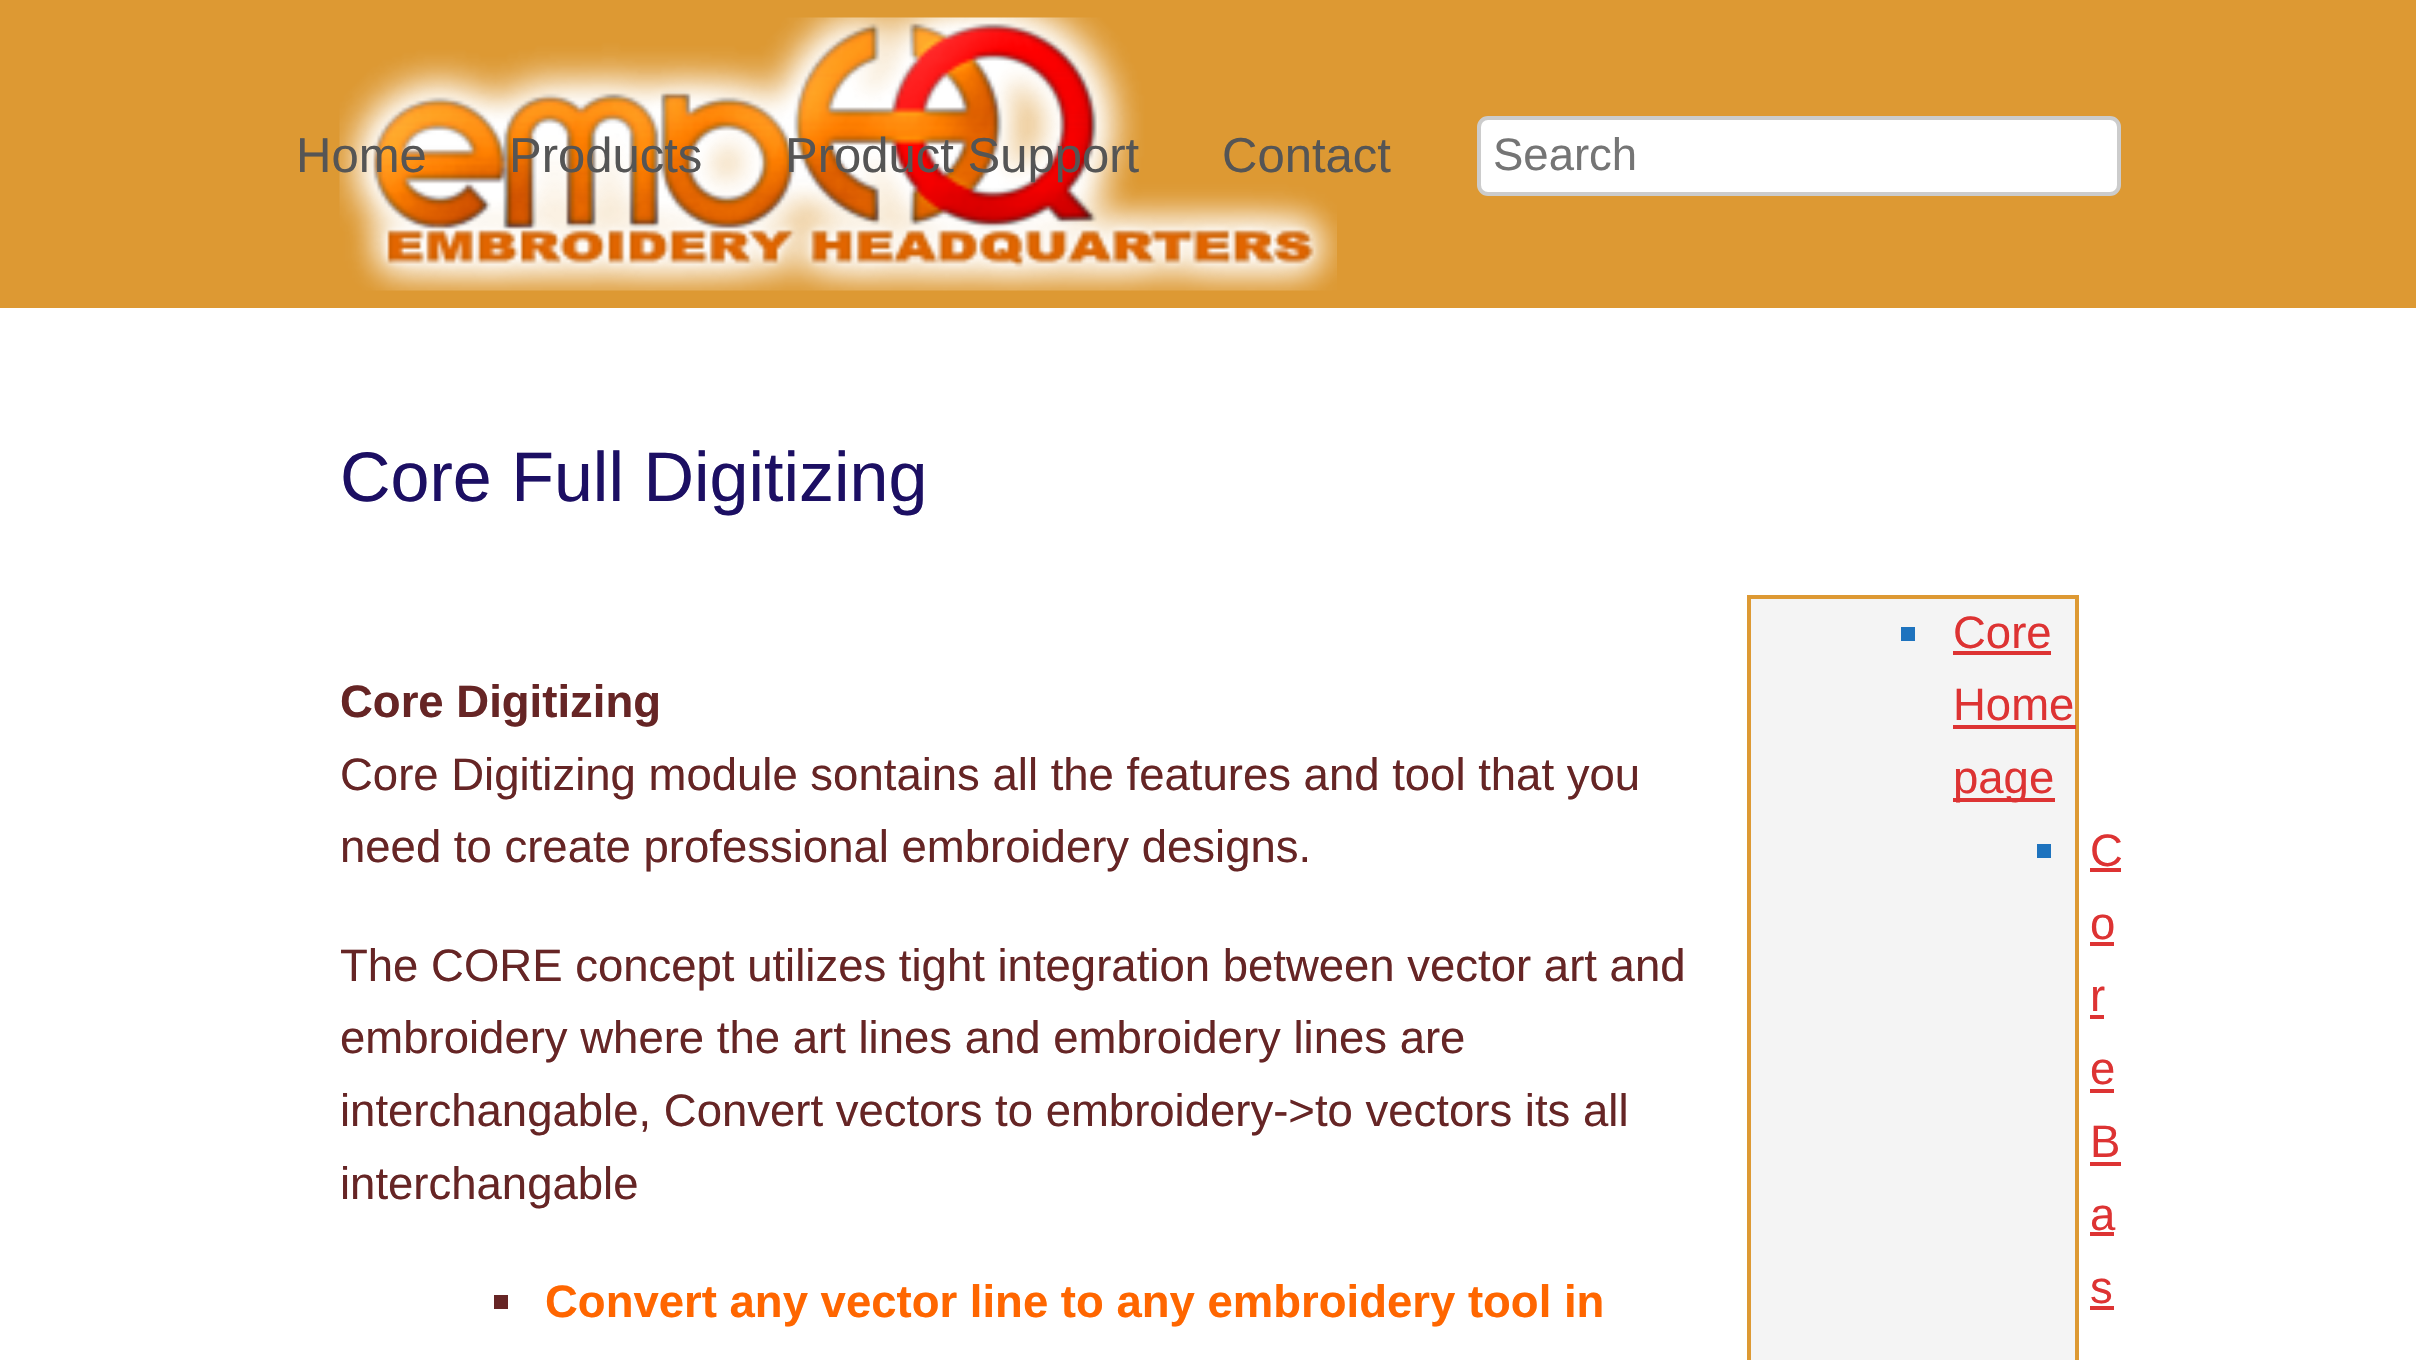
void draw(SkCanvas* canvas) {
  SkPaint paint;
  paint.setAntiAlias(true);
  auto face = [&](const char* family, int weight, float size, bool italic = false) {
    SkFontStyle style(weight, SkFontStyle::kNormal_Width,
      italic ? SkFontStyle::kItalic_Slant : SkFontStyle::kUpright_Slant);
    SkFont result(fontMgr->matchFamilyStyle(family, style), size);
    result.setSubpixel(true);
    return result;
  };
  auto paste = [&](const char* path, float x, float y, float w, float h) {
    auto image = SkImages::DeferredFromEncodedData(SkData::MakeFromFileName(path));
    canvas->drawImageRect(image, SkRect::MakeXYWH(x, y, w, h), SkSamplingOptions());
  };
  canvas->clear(0xffdd9933);
  paste("img/1.png", 339, 17, 998, 274);
  paint.setColor(0xffffffff);
  canvas->drawRoundRect(SkRect::MakeXYWH(1479, 118, 640, 76), 9, 9, paint);
  paint.setStroke(true);
  paint.setStrokeWidth(4);
  paint.setColor(0xffcccccc);
  canvas->drawRoundRect(SkRect::MakeXYWH(1479, 118, 640, 76), 9, 9, paint);
  paint.setStroke(false);
  paint.setColor(0xffffffff);
  canvas->drawRect(SkRect::MakeXYWH(0, 308, 2416, 1052), paint);
  paint.setColor(0xff662525);
  canvas->drawRect(SkRect::MakeXYWH(494, 1295, 14, 14), paint);
  paint.setColor(0xfff4f4f4);
  canvas->drawRect(SkRect::MakeXYWH(1749, 597, 328, 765), paint);
  paint.setStroke(true);
  paint.setColor(0xffdd9933);
  canvas->drawRect(SkRect::MakeXYWH(1749, 597, 328, 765), paint);
  paint.setStroke(false);
  {
    const struct { float x, y, w, h; SkColor color; } items[] = {
      {1901, 627, 14, 14, 0xff1e73be},
      {1953, 651, 98, 4, 0xffdd3333},
      {1953, 725, 123, 4, 0xffdd3333},
      {1953, 798, 102, 4, 0xffdd3333},
      {2037, 844, 14, 14, 0xff1e73be},
      {2090, 868, 31, 4, 0xffdd3333},
      {2090, 942, 24, 4, 0xffdd3333},
      {2090, 1015, 14, 4, 0xffdd3333},
      {2090, 1089, 24, 4, 0xffdd3333},
      {2090, 1162, 31, 4, 0xffdd3333},
      {2090, 1232, 24, 4, 0xffdd3333},
      {2090, 1306, 24, 4, 0xffdd3333},
    };
    for (auto [x, y, w, h, color] : items) {
      paint.setColor(color);
      canvas->drawRect(SkRect::MakeXYWH(x, y, w, h), paint);
    }
  }
  auto f0 = face("Liberation Sans", 400, 49);
  paint.setColor(0xff555555);
  {
    const struct { const char* s; float x, y; } items[] = {
      {"Home", 296, 172},
      {"Products", 509, 172},
      {"Product Support", 785, 172},
      {"Contact", 1222, 172},
    };
    for (auto [s, x, y] : items) {
      canvas->drawString(s, x, y, f0, paint);
    }
  }
  auto f1 = face("Liberation Sans", 400, 45.5f);
  paint.setColor(0xff757575);
  canvas->drawString("Search", 1493, 170, f1, paint);
  auto f2 = face("Liberation Sans", 400, 70);
  paint.setColor(0xff1c0f63);
  canvas->drawString("Core Full Digitizing", 340, 501, f2, paint);
  auto f3 = face("Liberation Sans", 700, 45.5f);
  paint.setColor(0xff662525);
  canvas->drawString("Core Digitizing", 340, 717, f3, paint);
  {
    const struct { const char* s; float x, y; } items[] = {
      {"Core Digitizing module sontains all the features and tool that you", 340, 790},
      {"need to create professional embroidery designs.", 340, 862},
      {"The CORE concept utilizes tight integration between vector art and", 340, 981},
      {"embroidery where the art lines and embroidery lines are", 340, 1053},
      {"interchangable, Convert vectors to embroidery->to vectors its all", 340, 1126},
      {"interchangable", 340, 1199},
    };
    for (auto [s, x, y] : items) {
      canvas->drawString(s, x, y, f1, paint);
    }
  }
  paint.setColor(0xffff6600);
  canvas->drawString("Convert any vector line to any embroidery tool in", 545, 1317, f3, paint);
  paint.setColor(0xffdd3333);
  {
    const struct { const char* s; float x, y; } items[] = {
      {"Core", 1953, 648},
      {"Home", 1953, 720},
      {"page", 1953, 793},
      {"C", 2090, 866},
      {"o", 2090, 939},
      {"r", 2090, 1011},
      {"e", 2090, 1084},
      {"B", 2090, 1157},
      {"a", 2090, 1230},
      {"s", 2090, 1303},
    };
    for (auto [s, x, y] : items) {
      canvas->drawString(s, x, y, f1, paint);
    }
  }
}
